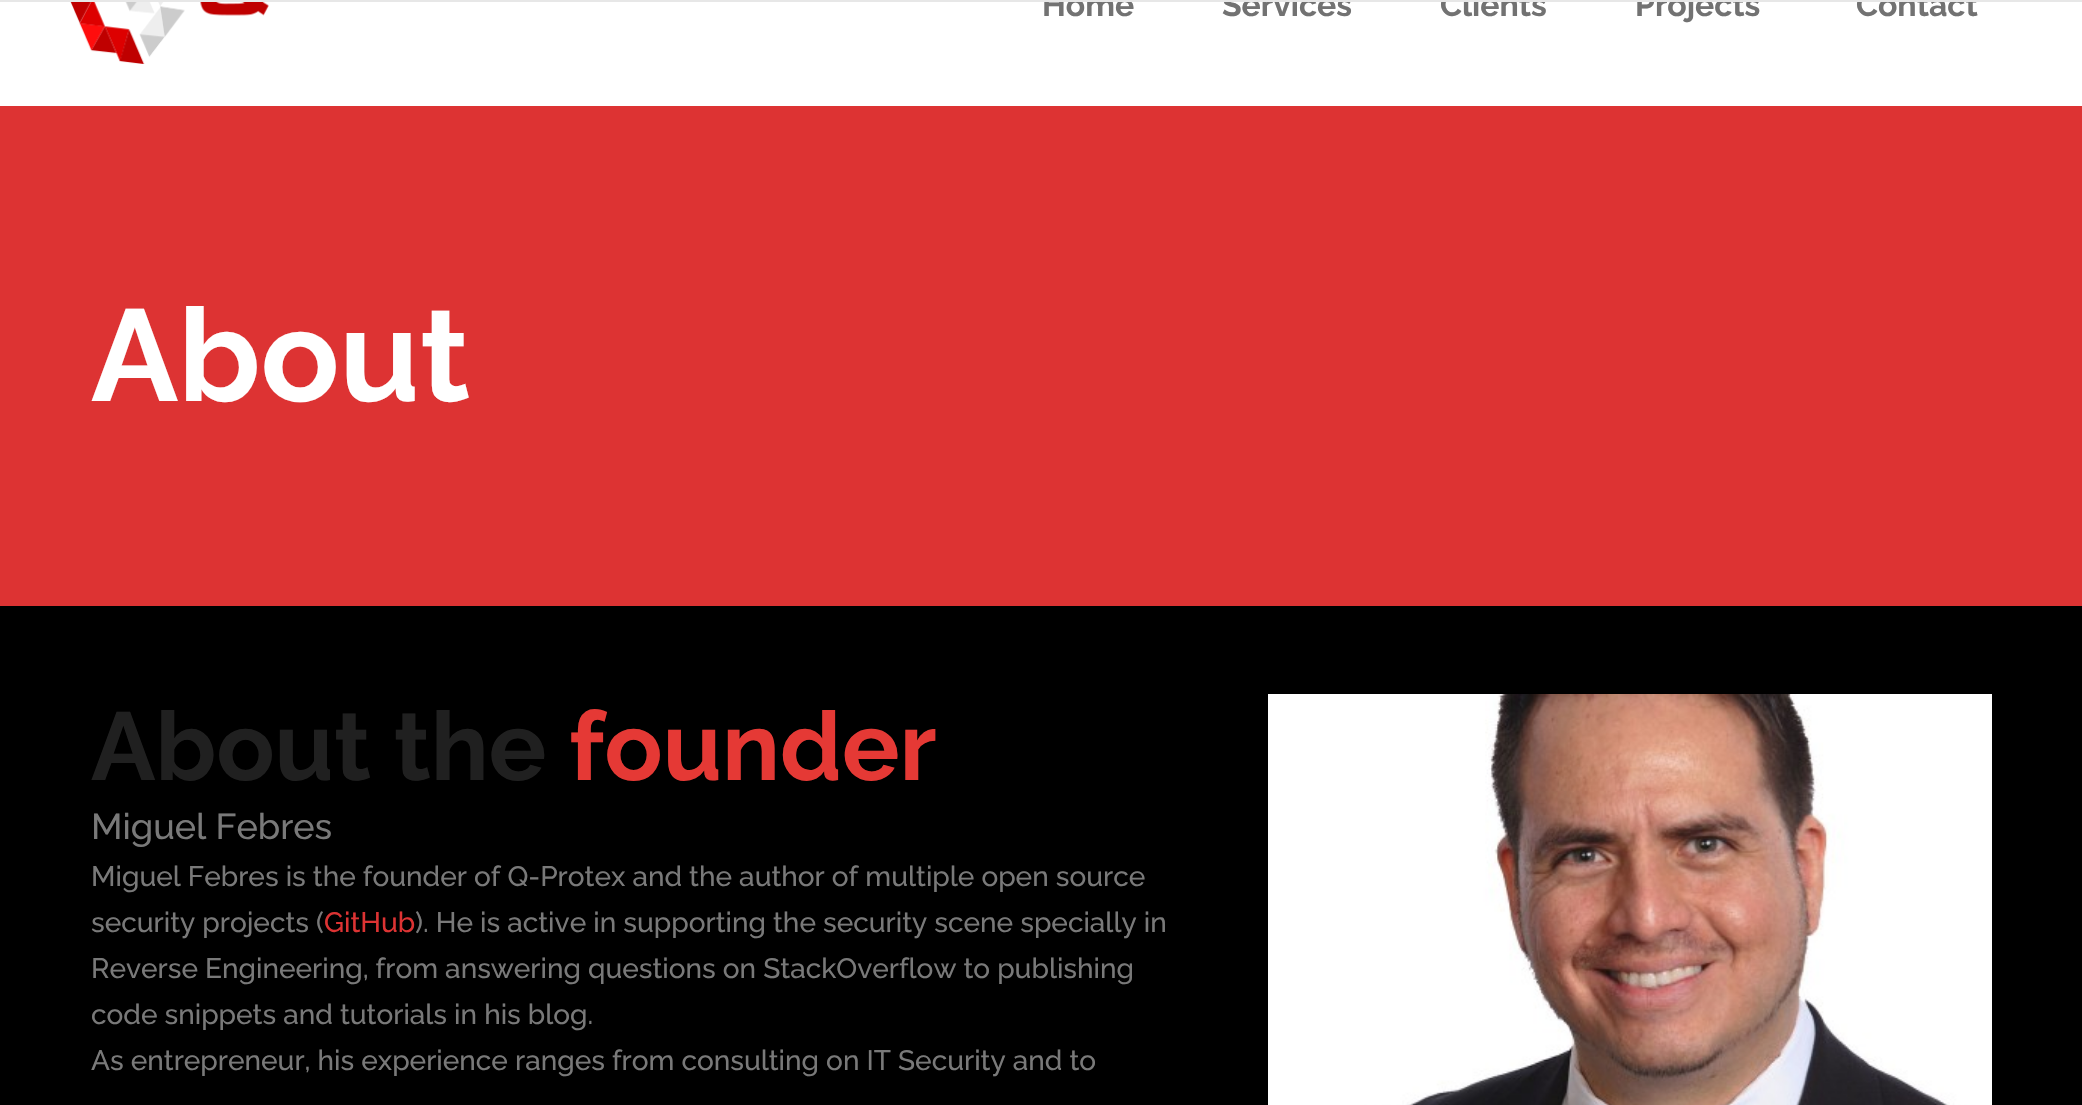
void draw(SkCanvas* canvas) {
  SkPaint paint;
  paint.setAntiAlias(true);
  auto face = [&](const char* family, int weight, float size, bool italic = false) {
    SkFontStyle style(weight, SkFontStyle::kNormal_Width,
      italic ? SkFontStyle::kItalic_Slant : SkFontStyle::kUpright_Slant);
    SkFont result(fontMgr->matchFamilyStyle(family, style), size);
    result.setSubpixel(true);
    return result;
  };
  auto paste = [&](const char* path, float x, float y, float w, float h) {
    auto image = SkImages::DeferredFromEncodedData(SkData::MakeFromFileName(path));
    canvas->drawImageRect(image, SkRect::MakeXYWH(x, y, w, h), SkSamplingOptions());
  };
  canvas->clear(0xffffffff);
  paste("img/1.png", 70, 2, 199, 62);
  paint.setColor(0xffdd3333);
  canvas->drawRect(SkRect::MakeXYWH(0, 106, 2082, 500), paint);
  paint.setColor(0xff000000);
  canvas->drawRect(SkRect::MakeXYWH(0, 606, 2082, 499), paint);
  paste("img/2.png", 1268, 694, 724, 411);
  auto f0 = face("Raleway", 700, 32);
  paint.setColor(0xff727272);
  {
    const struct { const char* s; float x, y; } items[] = {
      {"Home", 1042, 16},
      {"Services", 1222, 16},
      {"Clients", 1440, 16},
      {"Projects", 1635, 16},
      {"Contact", 1856, 16},
    };
    for (auto [s, x, y] : items) {
      canvas->drawString(s, x, y, f0, paint);
    }
  }
  paint.setColor(0xffe7e7e7);
  canvas->drawRect(SkRect::MakeXYWH(0, 0, 2082, 2), paint);
  auto f1 = face("Raleway", 700, 130);
  paint.setColor(0xffffffff);
  canvas->drawString("About", 91, 401, f1, paint);
  auto f2 = face("Raleway", 700, 96);
  paint.setColor(0xff202020);
  canvas->drawString("About the", 91, 780, f2, paint);
  paint.setColor(0xffe53935);
  canvas->drawString("founder", 569, 780, f2, paint);
  auto f3 = face("Raleway", 500, 36);
  paint.setColor(0xff797979);
  canvas->drawString("Miguel Febres", 91, 839, f3, paint);
  auto f4 = face("Raleway", 500, 28);
  canvas->drawString("Miguel Febres is the founder of Q-Protex and the author of multiple open source", 91, 886, f4, paint);
  canvas->drawString("security projects (", 91, 932, f4, paint);
  paint.setColor(0xffdd3333);
  canvas->drawString("GitHub", 324, 932, f4, paint);
  paint.setColor(0xff797979);
  {
    const struct { const char* s; float x, y; } items[] = {
      {"). He is active in supporting the security scene specially in", 415, 932},
      {"Reverse Engineering, from answering questions on StackOverflow to publishing", 91, 978},
      {"code snippets and tutorials in his blog.", 91, 1024},
      {"As entrepreneur, his experience ranges from consulting on IT Security and to", 91, 1070},
    };
    for (auto [s, x, y] : items) {
      canvas->drawString(s, x, y, f4, paint);
    }
  }
}
